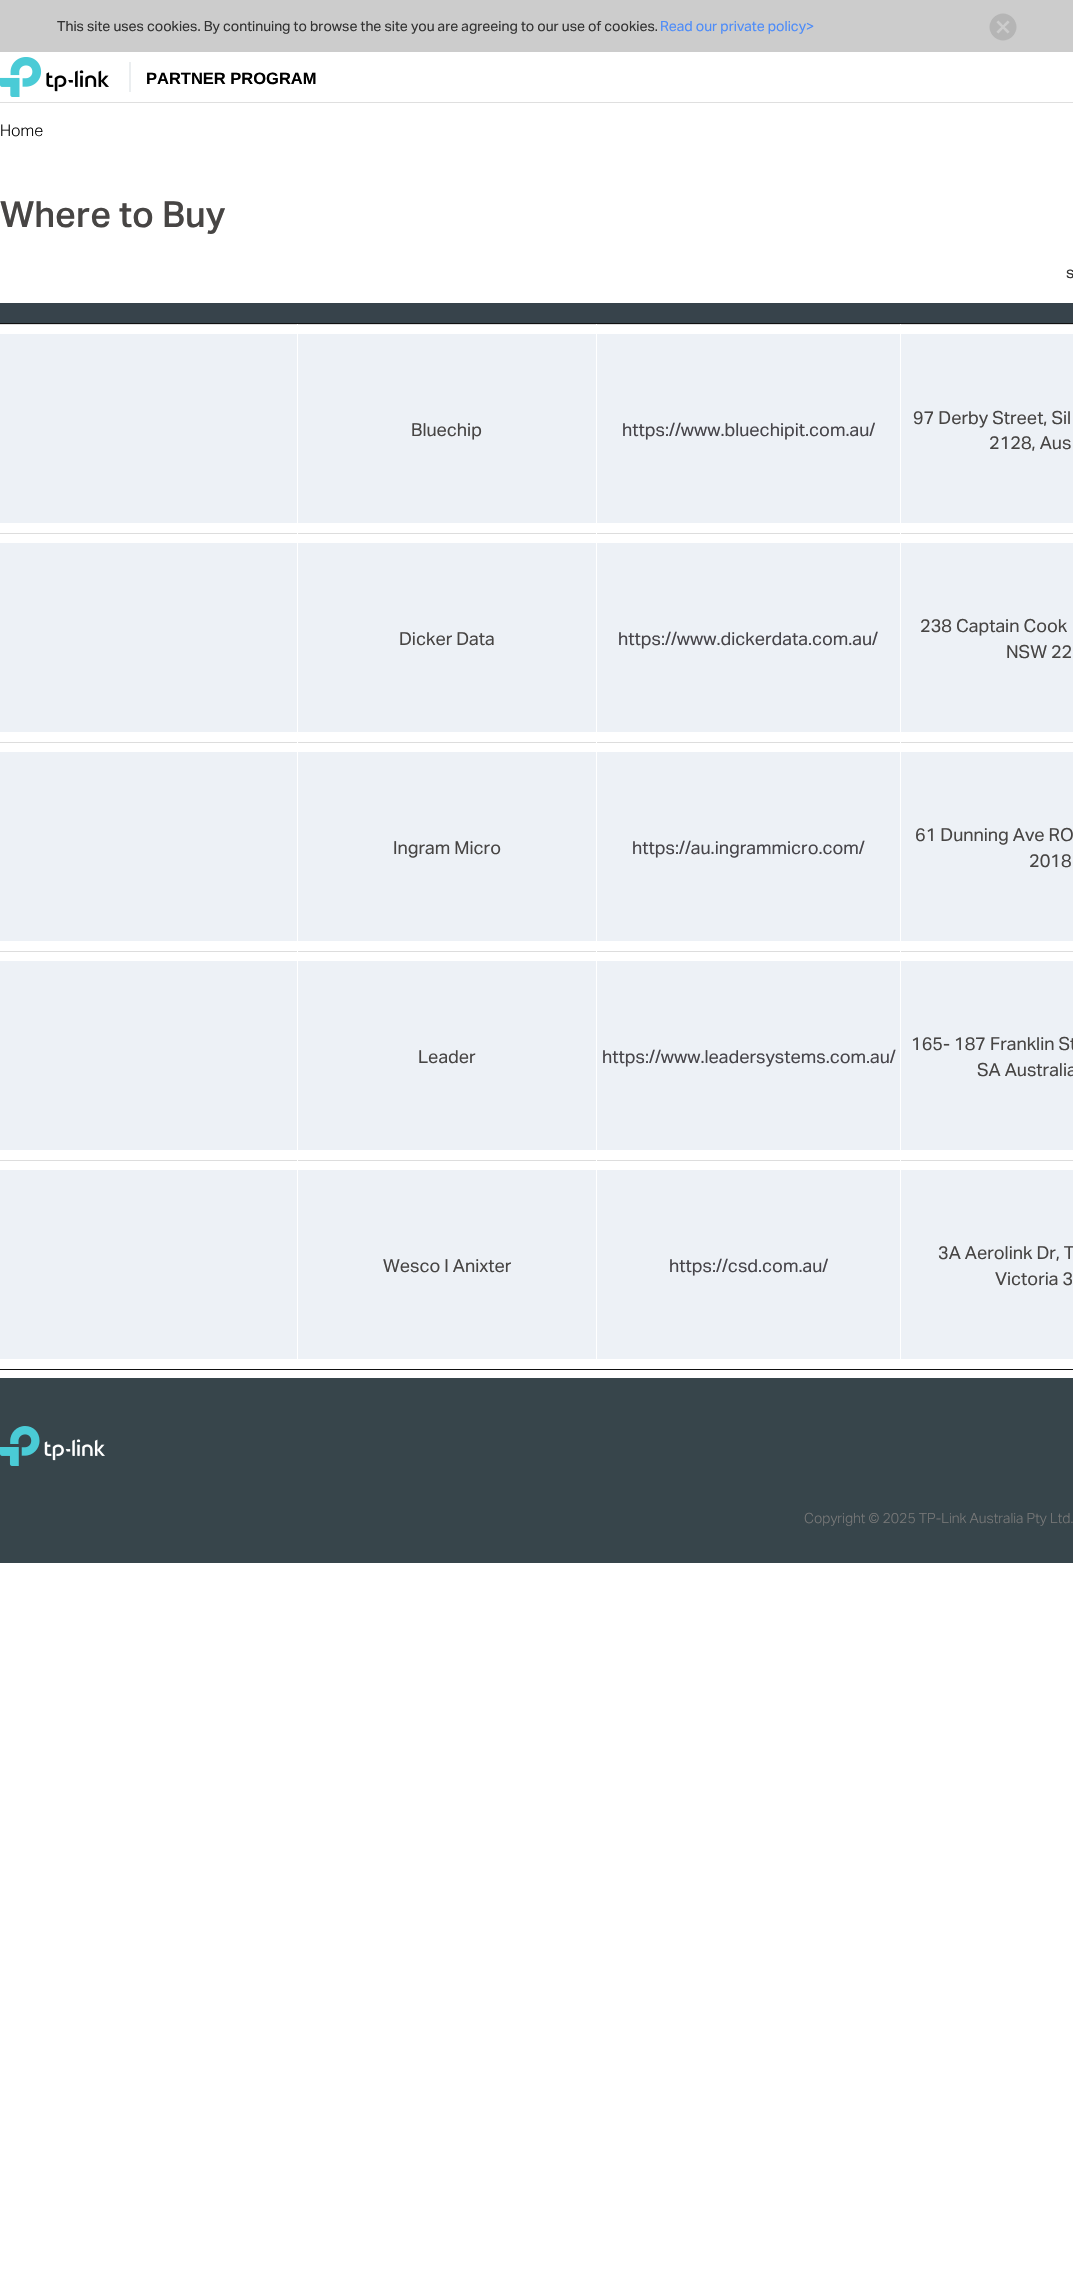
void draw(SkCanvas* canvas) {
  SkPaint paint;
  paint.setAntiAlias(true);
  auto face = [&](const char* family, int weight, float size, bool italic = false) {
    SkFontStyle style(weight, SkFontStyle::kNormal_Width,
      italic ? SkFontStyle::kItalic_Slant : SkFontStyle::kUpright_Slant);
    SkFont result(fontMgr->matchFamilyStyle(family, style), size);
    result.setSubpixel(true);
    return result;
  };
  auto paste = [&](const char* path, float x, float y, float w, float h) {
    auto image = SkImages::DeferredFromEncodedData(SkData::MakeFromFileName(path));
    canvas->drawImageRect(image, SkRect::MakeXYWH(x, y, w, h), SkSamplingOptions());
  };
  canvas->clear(0xffffffff);
  paint.setColor(0xffcccccc);
  canvas->drawRect(SkRect::MakeXYWH(0, 0, 1073, 52), paint);
  paste("img/1.png", 989, 13, 28, 28);
  paint.setColor(0xffdfdfdf);
  canvas->drawRect(SkRect::MakeXYWH(0, 102, 1073, 1), paint);
  paste("img/2.png", 0, 57, 109, 40);
  {
    const struct { float x, y, w, h; SkColor color; } items[] = {
      {129, 62, 2, 30, 0xffebeef0},
      {0, 1369, 1073, 1, 0xff111111},
      {0, 303, 1073, 20, 0xff37434b},
      {0, 323, 1073, 1, 0xff111111},
      {0, 334, 1073, 189, 0xffedf1f6},
      {0, 324, 1073, 1, 0xffdddddd},
      {297, 324, 1, 199, 0xffffffff},
      {596, 324, 1, 199, 0xffffffff},
      {900, 324, 1, 199, 0xffffffff},
      {0, 543, 1073, 189, 0xffedf1f6},
      {0, 533, 1073, 1, 0xffdddddd},
      {297, 533, 1, 199, 0xffffffff},
      {596, 533, 1, 199, 0xffffffff},
      {900, 533, 1, 199, 0xffffffff},
      {0, 752, 1073, 189, 0xffedf1f6},
      {0, 742, 1073, 1, 0xffdddddd},
      {297, 742, 1, 199, 0xffffffff},
      {596, 742, 1, 199, 0xffffffff},
      {900, 742, 1, 199, 0xffffffff},
      {0, 961, 1073, 189, 0xffedf1f6},
      {0, 951, 1073, 1, 0xffdddddd},
      {297, 951, 1, 199, 0xffffffff},
      {596, 951, 1, 199, 0xffffffff},
      {900, 951, 1, 199, 0xffffffff},
      {0, 1170, 1073, 189, 0xffedf1f6},
      {0, 1160, 1073, 1, 0xffdddddd},
      {297, 1160, 1, 199, 0xffffffff},
      {596, 1160, 1, 199, 0xffffffff},
      {900, 1160, 1, 199, 0xffffffff},
      {0, 1378, 1073, 185, 0xff37454b},
    };
    for (auto [x, y, w, h, color] : items) {
      paint.setColor(color);
      canvas->drawRect(SkRect::MakeXYWH(x, y, w, h), paint);
    }
  }
  paste("img/3.png", 0, 1426, 105, 40);
  auto f0 = face("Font", 400, 14);
  paint.setColor(0xff333333);
  canvas->drawString("This site uses cookies. By continuing to browse the site you are agreeing to our use of cookies.", 57, 31, f0, paint);
  paint.setColor(0xff4d8cf9);
  canvas->drawString("Read our private policy>", 660, 31, f0, paint);
  auto f1 = face("Liberation Sans", 700, 16.5f);
  paint.setColor(0xff000000);
  canvas->drawString("PARTNER PROGRAM", 146, 84, f1, paint);
  auto f2 = face("Font", 300, 16);
  canvas->drawString("Home", 0, 136, f2, paint);
  auto f3 = face("Font", 500, 36);
  paint.setColor(0xff474544);
  canvas->drawString("Where to Buy", 0, 227, f3, paint);
  auto f4 = face("Font", 400, 16);
  paint.setColor(0xff333333);
  canvas->drawString("s", 1066, 278, f4, paint);
  auto f5 = face("Font", 400, 18);
  paint.setColor(0xff474544);
  canvas->drawString("Bluechip", 411, 436, f5, paint);
  paint.setColor(0xff47454a);
  canvas->drawString("https://www.bluechipit.com.au/", 622, 436, f5, paint);
  paint.setColor(0xff474544);
  {
    const struct { const char* s; float x, y; } items[] = {
      {"97 Derby Street, Sil", 913, 424},
      {"2128, Aus", 989, 449},
      {"Dicker Data", 399, 645},
    };
    for (auto [s, x, y] : items) {
      canvas->drawString(s, x, y, f5, paint);
    }
  }
  paint.setColor(0xff47454a);
  canvas->drawString("https://www.dickerdata.com.au/", 618, 645, f5, paint);
  paint.setColor(0xff474544);
  {
    const struct { const char* s; float x, y; } items[] = {
      {"238 Captain Cook", 920, 632},
      {"NSW 22", 1006, 658},
      {"Ingram Micro", 393, 854},
    };
    for (auto [s, x, y] : items) {
      canvas->drawString(s, x, y, f5, paint);
    }
  }
  paint.setColor(0xff47454a);
  canvas->drawString("https://au.ingrammicro.com/", 632, 854, f5, paint);
  paint.setColor(0xff474544);
  {
    const struct { const char* s; float x, y; } items[] = {
      {"61 Dunning Ave RO", 915, 841},
      {"2018", 1029, 867},
      {"Leader", 418, 1063},
    };
    for (auto [s, x, y] : items) {
      canvas->drawString(s, x, y, f5, paint);
    }
  }
  paint.setColor(0xff47454a);
  canvas->drawString("https://www.leadersystems.com.au/", 602, 1063, f5, paint);
  paint.setColor(0xff474544);
  {
    const struct { const char* s; float x, y; } items[] = {
      {"165- 187 Franklin St", 911, 1050},
      {"SA Australia", 977, 1076},
      {"Wesco I Anixter", 383, 1272},
    };
    for (auto [s, x, y] : items) {
      canvas->drawString(s, x, y, f5, paint);
    }
  }
  paint.setColor(0xff47454a);
  canvas->drawString("https://csd.com.au/", 669, 1272, f5, paint);
  paint.setColor(0xff474544);
  canvas->drawString("3A Aerolink Dr, T", 938, 1259, f5, paint);
  canvas->drawString("Victoria 3", 995, 1285, f5, paint);
  auto f6 = face("Font", 300, 14);
  paint.setColor(0xff787878);
  canvas->drawString("Copyright © 2025 TP-Link Australia Pty Ltd.", 804, 1523, f6, paint);
}
